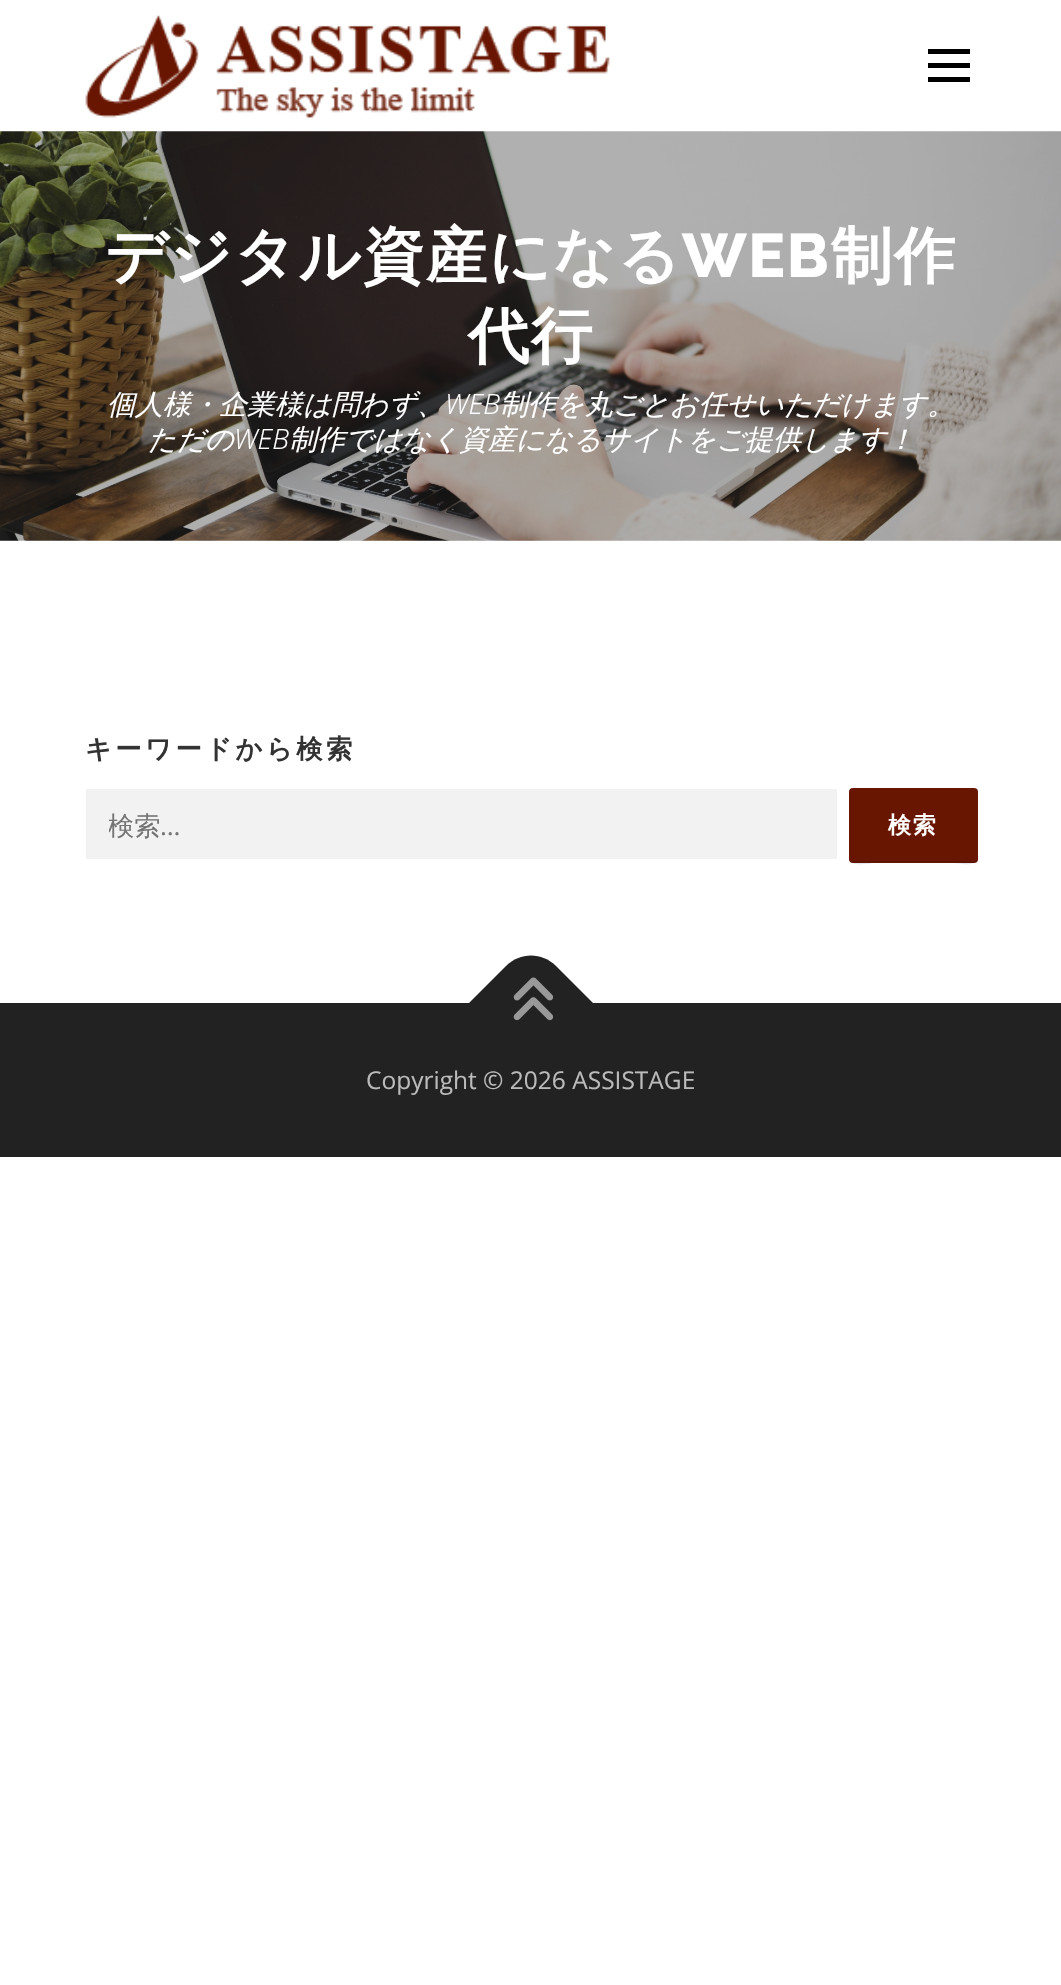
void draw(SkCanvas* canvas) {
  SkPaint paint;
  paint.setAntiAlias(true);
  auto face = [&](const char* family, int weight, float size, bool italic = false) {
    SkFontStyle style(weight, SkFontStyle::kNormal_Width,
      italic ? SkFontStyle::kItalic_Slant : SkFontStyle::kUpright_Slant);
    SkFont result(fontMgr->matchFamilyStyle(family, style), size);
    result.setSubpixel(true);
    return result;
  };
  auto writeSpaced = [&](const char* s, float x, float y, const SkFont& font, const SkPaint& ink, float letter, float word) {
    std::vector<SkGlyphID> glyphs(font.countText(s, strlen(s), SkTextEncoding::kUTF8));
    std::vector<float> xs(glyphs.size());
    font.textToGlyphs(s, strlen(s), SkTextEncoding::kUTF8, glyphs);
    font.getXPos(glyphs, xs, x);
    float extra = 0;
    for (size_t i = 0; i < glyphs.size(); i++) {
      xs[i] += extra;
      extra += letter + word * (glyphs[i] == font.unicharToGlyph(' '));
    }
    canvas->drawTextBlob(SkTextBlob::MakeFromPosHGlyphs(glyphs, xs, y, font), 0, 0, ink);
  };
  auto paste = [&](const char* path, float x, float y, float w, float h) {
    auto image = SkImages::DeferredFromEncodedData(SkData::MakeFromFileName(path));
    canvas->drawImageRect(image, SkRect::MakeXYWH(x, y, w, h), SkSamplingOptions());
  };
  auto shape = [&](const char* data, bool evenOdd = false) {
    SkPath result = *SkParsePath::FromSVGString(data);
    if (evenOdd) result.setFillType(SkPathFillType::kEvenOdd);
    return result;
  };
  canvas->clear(0xffffffff);
  paste("img/1.png", 85, 15, 525, 104);
  {
    const struct { float x, y, w, h; SkColor color; } items[] = {
      {928, 63, 42, 5, 0xff000000},
      {928, 49, 42, 5, 0xff000000},
      {928, 77, 42, 5, 0xff000000},
    };
    for (auto [x, y, w, h, color] : items) {
      paint.setColor(color);
      canvas->drawRect(SkRect::MakeXYWH(x, y, w, h), paint);
    }
  }
  paste("img/2.png", 0, 131, 1061, 410);
  paint.setColor(0xfff2f2f2);
  canvas->drawRect(SkRect::MakeXYWH(86, 789, 751, 70), paint);
  paint.setColor(0xff681602);
  canvas->drawRoundRect(SkRect::MakeXYWH(849, 788, 129, 75), 4, 4, paint);
  paint.setColor(0x1a000000);
  canvas->drawPath(shape("M849 858C849 868 871 863 873 863H954C956 863 978 868 978 858C978 859 977 861 975 861H852C850 861 849 859 849 858Z"), paint);
  paint.setColor(0xff222222);
  canvas->drawRect(SkRect::MakeXYWH(0, 1003, 1061, 154), paint);
  canvas->drawPath(shape("M469 1003L506 966C520 952 542 952 556 966L593 1003L531 1065Z"), paint);
  paste("img/3.png", 513, 977, 41, 44);
  auto f0 = face("WenQuanYi Zen Hei", 700, 61.25f);
  paint.setColor(0xffffffff);
  writeSpaced("デジタル資産になる", 105, 277, f0, paint, 1.75f, 0);
  auto f1 = face("Raleway", 800, 61.25f);
  writeSpaced("WEB", 682, 277, f1, paint, 1.75f, 0);
  writeSpaced("制作", 831, 277, f0, paint, 1.75f, 0);
  writeSpaced("代行", 468, 357, f0, paint, 1.75f, 0);
  auto f2 = face("WenQuanYi Zen Hei", 500, 28, true);
  canvas->drawString("個人様・企業様は問わず、", 107, 414, f2, paint);
  auto f3 = face("Open Sans", 300, 28, true);
  canvas->drawString("WEB", 445, 414, f3, paint);
  canvas->drawString("制作を丸ごとお任せいただけます。", 500, 414, f2, paint);
  canvas->drawString("ただの", 148, 449, f2, paint);
  canvas->drawString("WEB", 234, 449, f3, paint);
  canvas->drawString("制作ではなく資産になるサイトをご提供します！", 289, 449, f2, paint);
  auto f4 = face("WenQuanYi Zen Hei", 700, 26.25f);
  paint.setColor(0xff333333);
  writeSpaced("キーワードから検索", 85, 758, f4, paint, 3.5f, 0);
  canvas->save();
  canvas->clipRect(SkRect::MakeXYWH(109, 807, 698, 37));
  auto f5 = face("WenQuanYi Zen Hei", 500, 26.25f);
  paint.setColor(0xff757575);
  canvas->drawString("検索", 108, 835, f5, paint);
  canvas->restore();
  auto f6 = face("Open Sans", 400, 26.25f);
  canvas->drawString("…", 160, 835, f6, paint);
  auto f7 = face("WenQuanYi Zen Hei", 700, 23);
  paint.setColor(0xffffffff);
  writeSpaced("検索", 888, 833, f7, paint, 1.75f, 0);
  auto f8 = face("Open Sans", 400, 24.5f);
  paint.setColor(0xffbbbbbb);
  canvas->drawString("Copyright © 2026 ASSISTAGE", 366, 1089, f8, paint);
}
